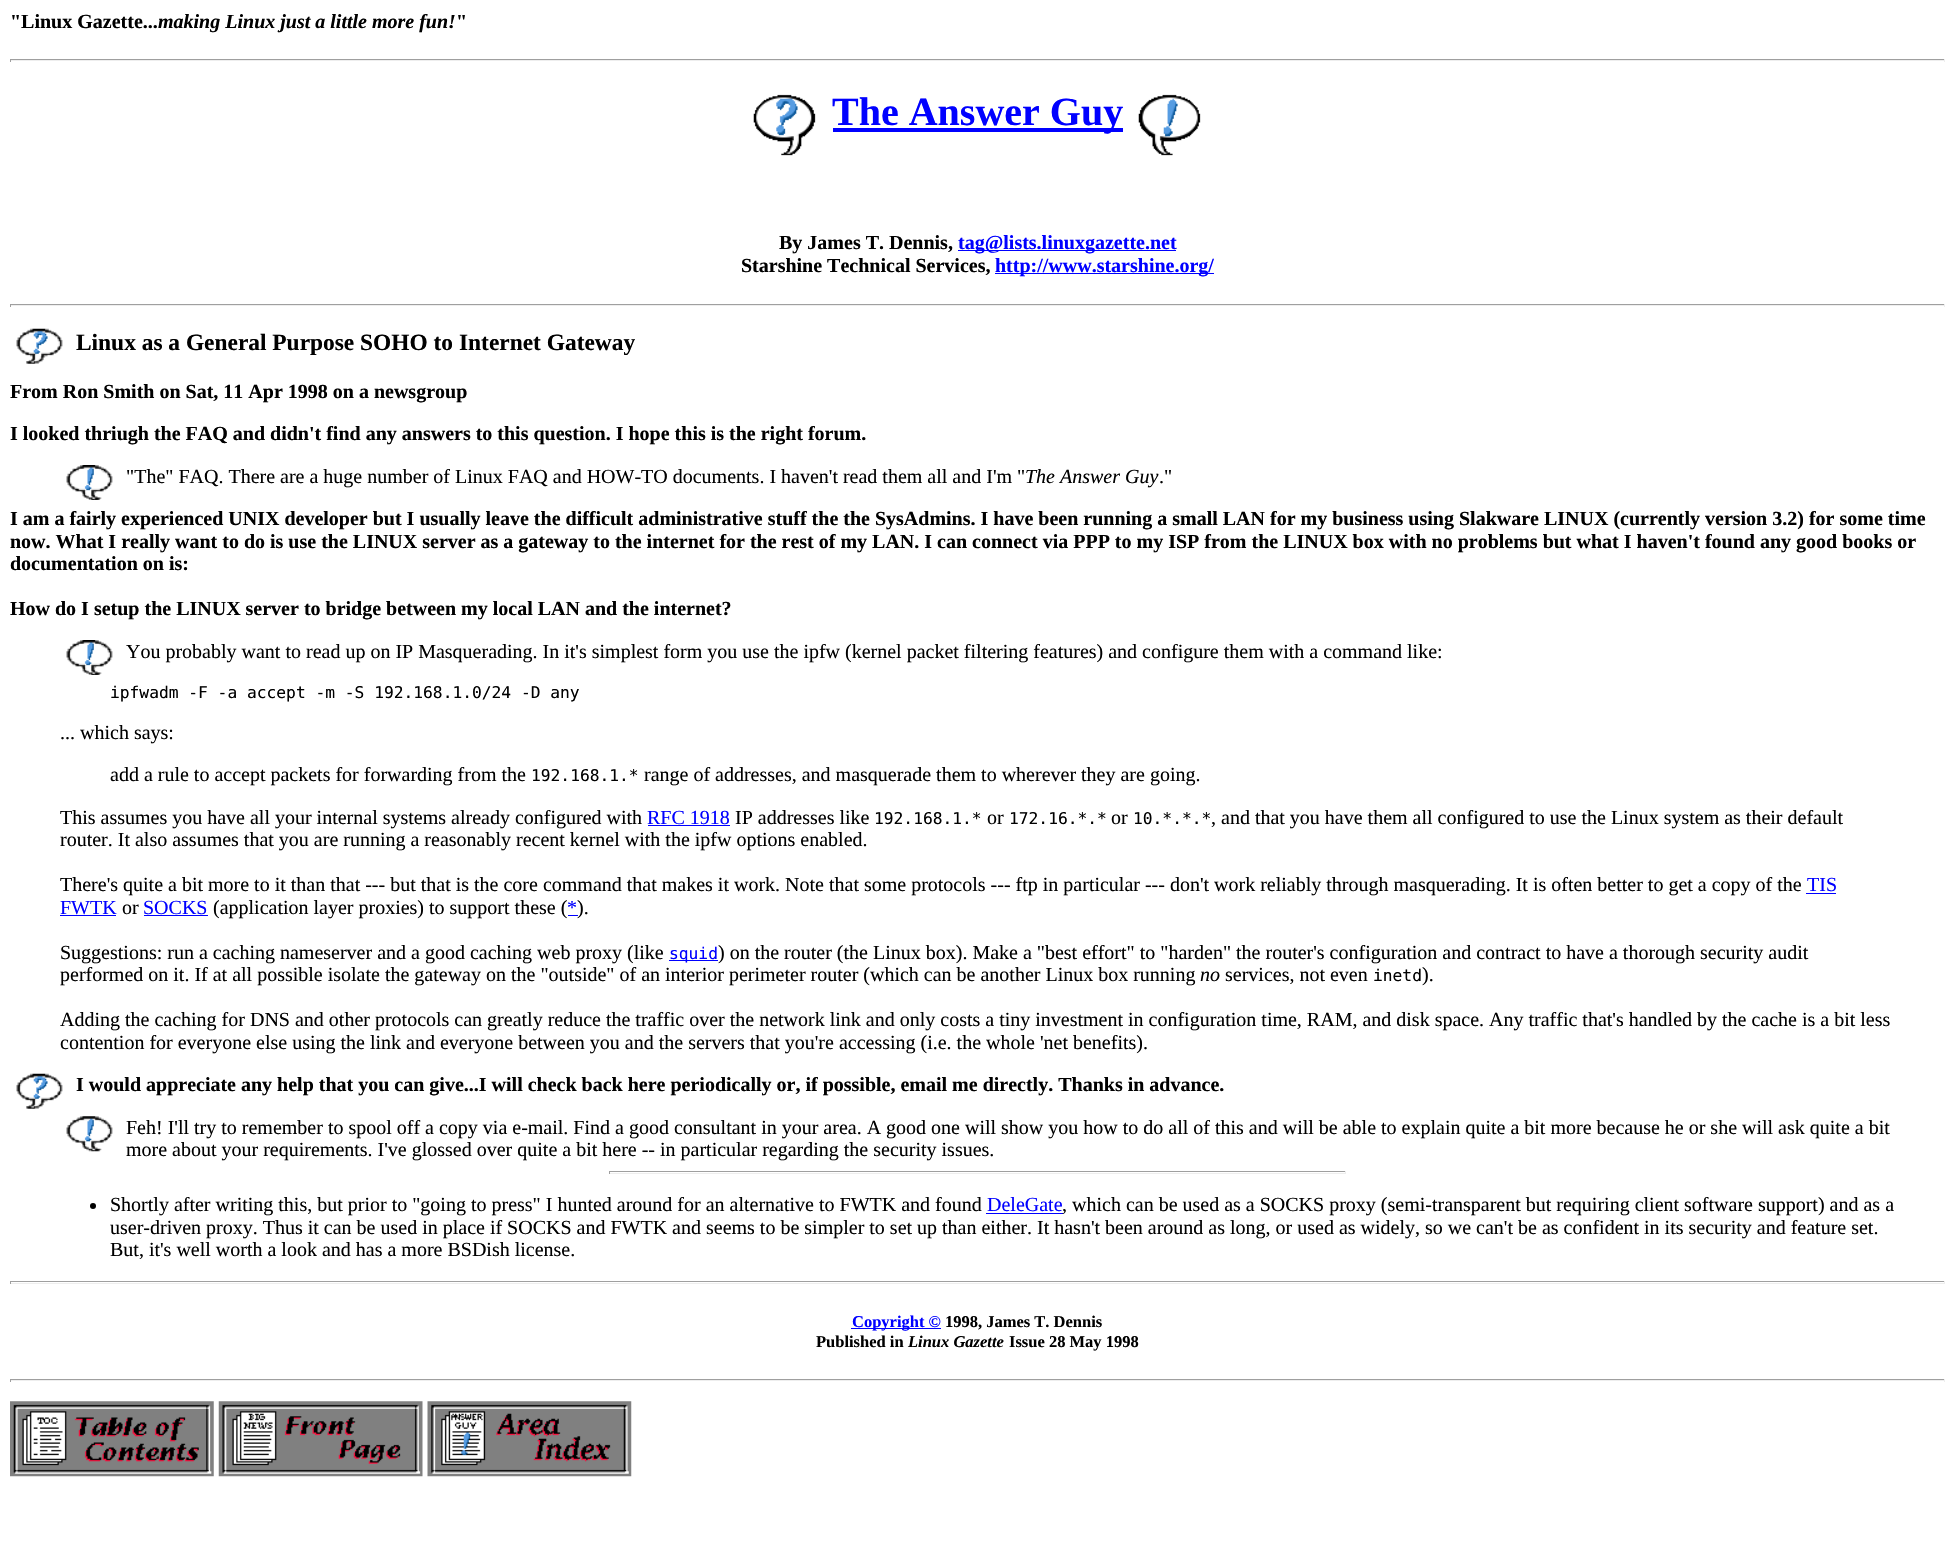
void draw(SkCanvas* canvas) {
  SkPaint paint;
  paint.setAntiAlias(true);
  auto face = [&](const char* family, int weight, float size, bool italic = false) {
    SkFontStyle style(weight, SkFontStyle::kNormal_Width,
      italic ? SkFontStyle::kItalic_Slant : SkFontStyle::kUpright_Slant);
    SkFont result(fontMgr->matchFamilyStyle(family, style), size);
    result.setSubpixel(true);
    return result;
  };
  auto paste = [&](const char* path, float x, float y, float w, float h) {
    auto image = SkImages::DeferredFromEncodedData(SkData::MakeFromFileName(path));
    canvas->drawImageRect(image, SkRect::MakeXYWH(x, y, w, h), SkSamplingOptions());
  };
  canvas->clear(0xffffffff);
  {
    const struct { float x, y, w, h; SkColor color; } items[] = {
      {10, 59, 1935, 1, 0xff9f9f9f},
      {1944, 59, 1, 3, 0xffeeeeee},
      {10, 60, 1935, 1, 0xffeeeeee},
      {10, 59, 1, 3, 0xff9f9f9f},
    };
    for (auto [x, y, w, h, color] : items) {
      paint.setColor(color);
      canvas->drawRect(SkRect::MakeXYWH(x, y, w, h), paint);
    }
  }
  paste("img/1.png", 753, 94, 63, 62);
  paint.setColor(0xff0000ff);
  canvas->drawRect(SkRect::MakeXYWH(833, 128, 290, 4), paint);
  paste("img/2.png", 1138, 94, 63, 62);
  {
    const struct { float x, y, w, h; SkColor color; } items[] = {
      {958, 250, 218, 1, 0xff0000ff},
      {995, 273, 219, 1, 0xff0000ff},
      {10, 304, 1935, 1, 0xff9f9f9f},
      {1944, 304, 1, 3, 0xffeeeeee},
      {10, 305, 1935, 1, 0xffeeeeee},
      {10, 304, 1, 3, 0xff9f9f9f},
    };
    for (auto [x, y, w, h, color] : items) {
      paint.setColor(color);
      canvas->drawRect(SkRect::MakeXYWH(x, y, w, h), paint);
    }
  }
  paste("img/3.png", 16, 328, 47, 36);
  paste("img/4.png", 66, 465, 47, 35);
  paste("img/4.png", 66, 640, 47, 35);
  {
    const struct { float x, y, w, h; SkColor color; } items[] = {
      {648, 825, 82, 1, 0xff0000ff},
      {1806, 893, 30, 1, 0xff0000ff},
      {60, 915, 56, 1, 0xff0000ff},
      {144, 915, 64, 1, 0xff0000ff},
      {568, 915, 10, 1, 0xff0000ff},
      {669, 960, 49, 1, 0xff0000ff},
    };
    for (auto [x, y, w, h, color] : items) {
      paint.setColor(color);
      canvas->drawRect(SkRect::MakeXYWH(x, y, w, h), paint);
    }
  }
  paste("img/3.png", 16, 1073, 47, 36);
  paste("img/5.png", 66, 1116, 47, 36);
  {
    const struct { float x, y, w, h; SkColor color; } items[] = {
      {609, 1171, 737, 1, 0xff9f9f9f},
      {1345, 1171, 1, 3, 0xffeeeeee},
      {609, 1173, 737, 1, 0xffeeeeee},
      {609, 1171, 1, 3, 0xff9f9f9f},
    };
    for (auto [x, y, w, h, color] : items) {
      paint.setColor(color);
      canvas->drawRect(SkRect::MakeXYWH(x, y, w, h), paint);
    }
  }
  paint.setColor(0xff000000);
  canvas->drawCircle(93, 1206, 3, paint);
  {
    const struct { float x, y, w, h; SkColor color; } items[] = {
      {986, 1213, 77, 1, 0xff0000ff},
      {10, 1281, 1935, 1, 0xff9f9f9f},
      {1944, 1281, 1, 3, 0xffeeeeee},
      {10, 1283, 1935, 1, 0xffeeeeee},
      {10, 1281, 1, 3, 0xff9f9f9f},
      {851, 1328, 90, 1, 0xff0000ff},
      {10, 1379, 1935, 1, 0xff9f9f9f},
      {1944, 1379, 1, 3, 0xffeeeeee},
      {10, 1380, 1935, 1, 0xffeeeeee},
      {10, 1379, 1, 3, 0xff9f9f9f},
    };
    for (auto [x, y, w, h, color] : items) {
      paint.setColor(color);
      canvas->drawRect(SkRect::MakeXYWH(x, y, w, h), paint);
    }
  }
  paste("img/6.png", 10, 1401, 204, 76);
  paste("img/7.png", 218, 1401, 205, 76);
  paste("img/8.png", 427, 1401, 205, 76);
  auto f0 = face("Liberation Serif", 700, 20);
  paint.setColor(0xff000000);
  canvas->drawString("\"Linux Gazette...", 10, 28, f0, paint);
  auto f1 = face("Liberation Serif", 700, 20, true);
  canvas->drawString("making Linux just a little more fun!", 158, 28, f1, paint);
  canvas->drawString("\"", 456, 28, f0, paint);
  auto f2 = face("Liberation Serif", 700, 40);
  paint.setColor(0xff0000ff);
  canvas->drawString("The Answer Guy", 832, 125, f2, paint);
  paint.setColor(0xff000000);
  canvas->drawString("By James T. Dennis,", 779, 249, f0, paint);
  paint.setColor(0xff0000ff);
  canvas->drawString("tag@lists.linuxgazette.net", 958, 249, f0, paint);
  paint.setColor(0xff000000);
  canvas->drawString("Starshine Technical Services,", 741, 272, f0, paint);
  paint.setColor(0xff0000ff);
  canvas->drawString("http://www.starshine.org/", 995, 272, f0, paint);
  auto f3 = face("Liberation Serif", 700, 23.4f);
  paint.setColor(0xff000000);
  canvas->drawString("Linux as a General Purpose SOHO to", 76, 350, f3, paint);
  canvas->drawString("Internet Gateway", 459, 350, f3, paint);
  canvas->drawString("From Ron Smith on Sat, 11 Apr 1998 on a newsgroup", 10, 398, f0, paint);
  canvas->drawString("I looked thriugh the FAQ and didn't find any answers to this question. I hope this is the right forum.", 10, 440, f0, paint);
  auto f4 = face("Liberation Serif", 400, 20);
  canvas->drawString("\"The\" FAQ. There are a huge number of Linux FAQ and HOW-TO documents. I haven't read them all and I'm \"", 126, 483, f4, paint);
  auto f5 = face("Liberation Serif", 400, 20, true);
  canvas->drawString("The Answer Guy", 1025, 483, f5, paint);
  canvas->drawString(".\"", 1159, 483, f4, paint);
  {
    const struct { const char* s; float x, y; } items[] = {
      {"I am a fairly experienced UNIX developer but I usually leave the difficult administrative stuff the the SysAdmins. I have been running a small LAN for my business using Slakware LINUX (currently version 3.2) for some time", 10, 525},
      {"now. What I really want to do is use the LINUX server as a gateway to the internet for the rest of my LAN. I can connect via PPP to my ISP from the LINUX box with no problems but what I haven't found any good books or", 10, 548},
      {"documentation on is:", 10, 570},
      {"How do I setup the LINUX server to bridge between my local LAN and the internet?", 10, 615},
    };
    for (auto [s, x, y] : items) {
      canvas->drawString(s, x, y, f0, paint);
    }
  }
  canvas->drawString("You probably want to read up on IP Masquerading. In it's simplest form you use the ipfw (kernel packet filtering features) and configure them with a command like:", 126, 658, f4, paint);
  auto f6 = face("DejaVu Sans Mono", 400, 16.25f);
  canvas->drawString("ipfwadm -F -a accept -m -S 192.168.1.0/24 -D any", 110, 698, f6, paint);
  canvas->drawString("... which says:", 60, 739, f4, paint);
  canvas->drawString("add a rule to accept packets for forwarding from the", 110, 781, f4, paint);
  canvas->drawString("192.168.1.*", 531, 781, f6, paint);
  canvas->drawString("range of addresses, and masquerade them to wherever they are going.", 644, 781, f4, paint);
  canvas->drawString("This assumes you have all your internal systems already configured with", 60, 824, f4, paint);
  paint.setColor(0xff0000ff);
  canvas->drawString("RFC 1918", 647, 824, f4, paint);
  paint.setColor(0xff000000);
  canvas->drawString("IP addresses like", 735, 824, f4, paint);
  canvas->drawString("192.168.1.*", 874, 824, f6, paint);
  canvas->drawString("or", 987, 824, f4, paint);
  canvas->drawString("172.16.*.*", 1009, 824, f6, paint);
  canvas->drawString("or", 1111, 824, f4, paint);
  canvas->drawString("10.*.*.*", 1133, 824, f6, paint);
  {
    const struct { const char* s; float x, y; } items[] = {
      {", and that you have them all configured to use the Linux system as their default", 1211, 824},
      {"router. It also assumes that you are running a reasonably recent kernel with the ipfw options enabled.", 60, 846},
      {"There's quite a bit more to it than that --- but that is the core command that makes it work. Note that some protocols --- ftp in particular --- don't work reliably through masquerading. It is often better to get a copy of the", 60, 891},
    };
    for (auto [s, x, y] : items) {
      canvas->drawString(s, x, y, f4, paint);
    }
  }
  paint.setColor(0xff0000ff);
  canvas->drawString("TIS", 1807, 891, f4, paint);
  canvas->drawString("FWTK", 60, 914, f4, paint);
  paint.setColor(0xff000000);
  canvas->drawString("or", 122, 914, f4, paint);
  paint.setColor(0xff0000ff);
  canvas->drawString("SOCKS", 143, 914, f4, paint);
  paint.setColor(0xff000000);
  canvas->drawString("(application layer proxies) to support these (", 213, 914, f4, paint);
  paint.setColor(0xff0000ff);
  canvas->drawString("*", 567, 914, f4, paint);
  paint.setColor(0xff000000);
  canvas->drawString(").", 577, 914, f4, paint);
  canvas->drawString("Suggestions: run a caching nameserver and a good caching web proxy (like", 60, 959, f4, paint);
  paint.setColor(0xff0000ff);
  canvas->drawString("squid", 669, 959, f6, paint);
  paint.setColor(0xff000000);
  canvas->drawString(") on the router (the Linux box). Make a \"best effort\" to \"harden\" the router's configuration and contract to have a thorough security audit", 718, 959, f4, paint);
  canvas->drawString("performed on it. If at all possible isolate the gateway on the \"outside\" of an interior perimeter router (which can be another Linux box running", 60, 981, f4, paint);
  canvas->drawString("no", 1200, 981, f5, paint);
  canvas->drawString("services, not even", 1225, 981, f4, paint);
  canvas->drawString("inetd", 1373, 981, f6, paint);
  {
    const struct { const char* s; float x, y; } items[] = {
      {").", 1422, 981},
      {"Adding the caching for DNS and other protocols can greatly reduce the traffic over the network link and only costs a tiny investment in configuration time, RAM, and disk space. Any traffic that's handled by the cache is a bit less", 60, 1026},
      {"contention for everyone else using the link and everyone between you and the servers that you're accessing (i.e. the whole 'net benefits).", 60, 1049},
    };
    for (auto [s, x, y] : items) {
      canvas->drawString(s, x, y, f4, paint);
    }
  }
  canvas->drawString("I would appreciate any help that you can give...I will check back here periodically or, if possible, email me directly. Thanks in advance.", 76, 1091, f0, paint);
  {
    const struct { const char* s; float x, y; } items[] = {
      {"Feh! I'll try to remember to spool off a copy via e-mail. Find a good consultant in your area. A good one will show you how to do all of this and will be able to explain quite a bit more because he or she will ask quite a bit", 126, 1134},
      {"more about your requirements. I've glossed over quite a bit here -- in particular regarding the security issues.", 126, 1156},
      {"Shortly after writing this, but prior to \"going to press\" I hunted around for an alternative to FWTK and found", 110, 1211},
    };
    for (auto [s, x, y] : items) {
      canvas->drawString(s, x, y, f4, paint);
    }
  }
  paint.setColor(0xff0000ff);
  canvas->drawString("DeleGate", 987, 1211, f4, paint);
  paint.setColor(0xff000000);
  {
    const struct { const char* s; float x, y; } items[] = {
      {", which can be used as a SOCKS proxy (semi-transparent but requiring client software support) and as a", 1062, 1211},
      {"user-driven proxy. Thus it can be used in place if SOCKS and FWTK and seems to be simpler to set up than either. It hasn't been around as long, or used as widely, so we can't be as confident in its security and feature set.", 110, 1234},
      {"But, it's well worth a look and has a more BSDish license.", 110, 1256},
    };
    for (auto [s, x, y] : items) {
      canvas->drawString(s, x, y, f4, paint);
    }
  }
  auto f7 = face("Liberation Serif", 700, 16.5f);
  paint.setColor(0xff0000ff);
  canvas->drawString("Copyright ©", 852, 1327, f7, paint);
  paint.setColor(0xff000000);
  canvas->drawString("1998, James T. Dennis", 945, 1327, f7, paint);
  canvas->drawString("Published in", 816, 1347, f7, paint);
  auto f8 = face("Liberation Serif", 700, 16.5f, true);
  canvas->drawString("Linux Gazette", 908, 1347, f8, paint);
  canvas->drawString("Issue 28 May 1998", 1009, 1347, f7, paint);
}
